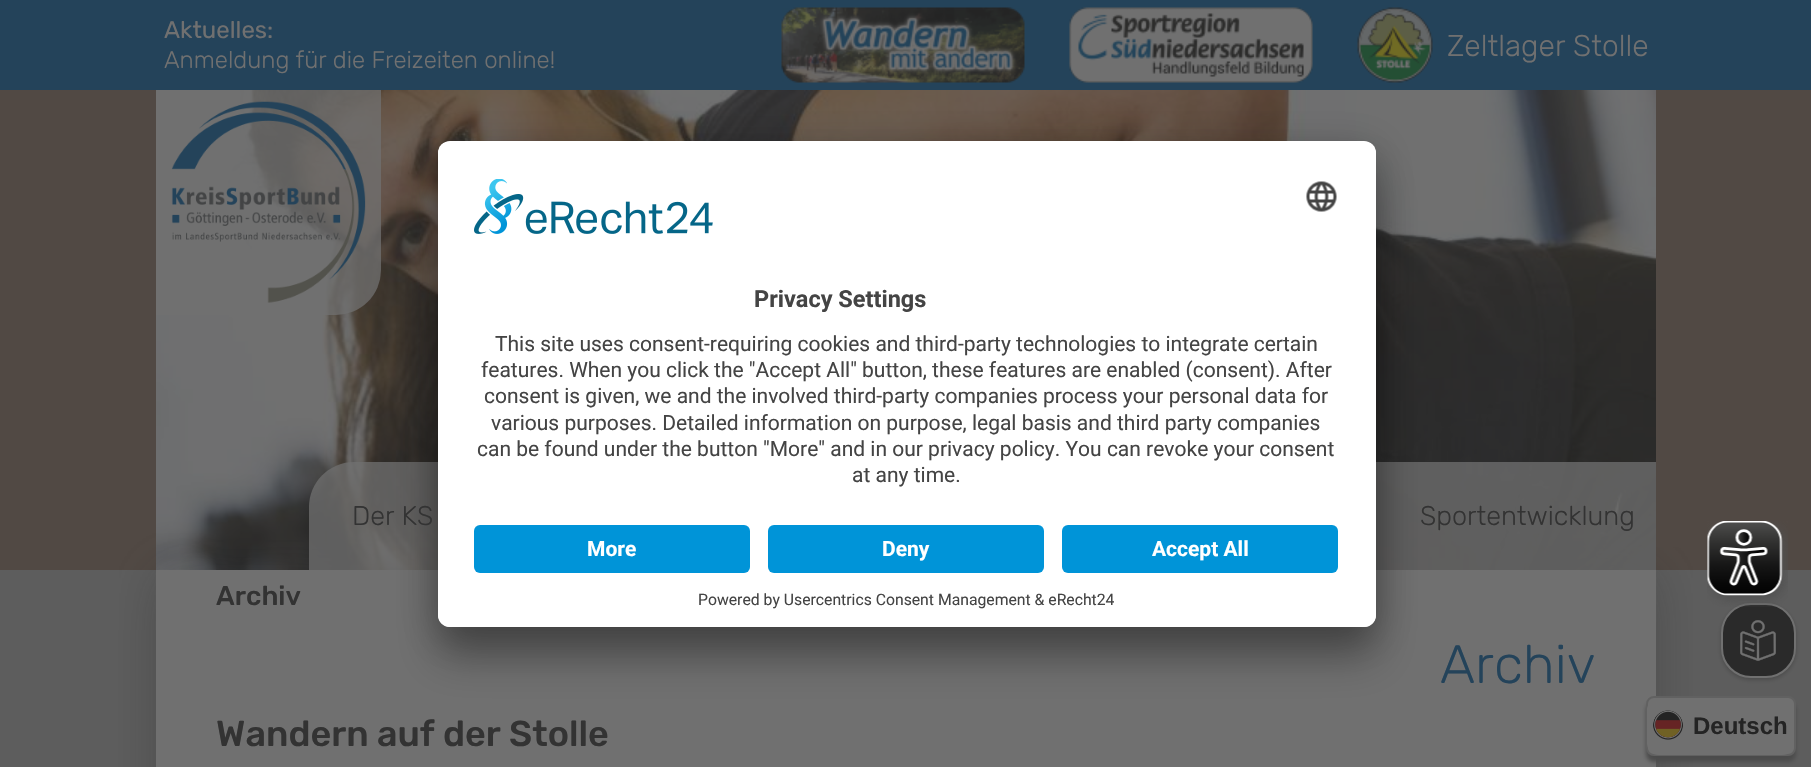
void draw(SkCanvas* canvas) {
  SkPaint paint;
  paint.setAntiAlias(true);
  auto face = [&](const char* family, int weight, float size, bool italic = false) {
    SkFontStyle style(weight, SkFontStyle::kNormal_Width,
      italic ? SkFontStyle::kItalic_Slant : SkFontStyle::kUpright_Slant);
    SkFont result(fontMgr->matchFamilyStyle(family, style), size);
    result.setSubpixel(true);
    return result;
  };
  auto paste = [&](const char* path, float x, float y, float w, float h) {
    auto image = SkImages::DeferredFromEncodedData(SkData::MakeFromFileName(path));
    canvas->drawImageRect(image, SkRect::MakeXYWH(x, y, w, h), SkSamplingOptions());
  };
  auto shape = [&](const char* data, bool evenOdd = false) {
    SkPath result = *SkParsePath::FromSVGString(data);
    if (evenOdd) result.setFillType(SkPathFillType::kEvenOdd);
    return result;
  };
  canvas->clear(0xff5d5d5d);
  paint.setColor(0xff24435a);
  canvas->drawRect(SkRect::MakeXYWH(0, 0, 1811, 90), paint);
  paste("img/1.png", 781, 7, 244, 76);
  paste("img/2.png", 1069, 7, 244, 76);
  paste("img/3.png", 1357, 7, 76, 76);
  paint.setColor(0xff514944);
  canvas->drawRect(SkRect::MakeXYWH(0, 90, 1811, 480), paint);
  paste("img/4.png", 156, 90, 1500, 480);
  paste("img/5.png", 156, 90, 225, 225);
  paste("img/6.png", 171, 101, 195, 202);
  paste("img/9.png", 216, 532, 222, 38);
  paste("img/10.png", 1596, 547, 97, 83);
  paste("img/7.png", 309, 462, 1347, 108);
  paste("img/8.png", 119, 533, 97, 97);
  paste("img/11.png", 118, 630, 38, 137);
  paint.setColor(0xff707070);
  canvas->drawRect(SkRect::MakeXYWH(156, 570, 1500, 197), paint);
  paste("img/12.png", 1656, 630, 37, 137);
  paint.setColor(0x4d000000);
  paint.setMaskFilter(SkMaskFilter::MakeBlur(kNormal_SkBlurStyle, 21));
  canvas->drawRoundRect(SkRect::MakeXYWH(438, 171, 938, 486), 12, 12, paint);
  paint.setMaskFilter(nullptr);
  paint.setColor(0x38000000);
  paint.setMaskFilter(SkMaskFilter::MakeBlur(kNormal_SkBlurStyle, 19.5f));
  canvas->drawRoundRect(SkRect::MakeXYWH(438, 149, 938, 486), 12, 12, paint);
  paint.setMaskFilter(nullptr);
  paint.setColor(0xffffffff);
  canvas->drawRoundRect(SkRect::MakeXYWH(438, 141, 938, 486), 12, 12, paint);
  canvas->save();
  canvas->clipPath(shape("M450 141H1364C1370.5 141 1376 146.5 1376 153V615C1376 621.5 1370.5 627 1364 627H450C443.5 627 438 621.5 438 615V153C438 146.5 443.5 141 450 141Z"), true);
  canvas->clipPath(shape("M450 141H1364C1370.5 141 1376 146.5 1376 153V513H438V153C438 146.5 443.5 141 450 141Z"), true);
  canvas->drawRect(SkRect::MakeXYWH(438, 143, 938, 370), paint);
  canvas->restore();
  paste("img/13.png", 474, 179, 239, 55);
  paste("img/14.png", 1306, 181, 31, 31);
  canvas->drawPath(shape("M438 513H1376V615C1376 621.5 1370.5 627 1364 627H450C443.5 627 438 621.5 438 615Z"), paint);
  paint.setColor(0xff0094d8);
  canvas->drawRoundRect(SkRect::MakeXYWH(474, 525, 276, 48), 6, 6, paint);
  canvas->drawRoundRect(SkRect::MakeXYWH(768, 525, 276, 48), 6, 6, paint);
  canvas->drawRoundRect(SkRect::MakeXYWH(1062, 525, 276, 48), 6, 6, paint);
  paint.setColor(0xff4b4b4b);
  paint.setMaskFilter(SkMaskFilter::MakeBlur(kNormal_SkBlurStyle, 2));
  canvas->drawRoundRect(SkRect::MakeXYWH(1721, 605, 75, 75), 30, 30, paint);
  paint.setMaskFilter(nullptr);
  paint.setColor(0xff2a2a2a);
  canvas->drawRoundRect(SkRect::MakeXYWH(1722, 604, 73, 73), 29, 29, paint);
  paint.setStroke(true);
  paint.setStrokeWidth(2);
  paint.setColor(0xff707070);
  canvas->drawRoundRect(SkRect::MakeXYWH(1722, 604, 73, 73), 29, 29, paint);
  paste("img/15.png", 1707, 521, 81, 86);
  paste("img/16.png", 1740, 620, 36, 41);
  paint.setStroke(false);
  paint.setColor(0xff4b4b4b);
  paint.setMaskFilter(SkMaskFilter::MakeBlur(kNormal_SkBlurStyle, 2));
  canvas->drawRoundRect(SkRect::MakeXYWH(1646, 702, 150, 60), 8, 8, paint);
  paint.setMaskFilter(nullptr);
  paint.setColor(0xff707070);
  canvas->drawRoundRect(SkRect::MakeXYWH(1647, 697, 148, 58), 7, 7, paint);
  paint.setStroke(true);
  paint.setColor(0xff616161);
  canvas->drawRoundRect(SkRect::MakeXYWH(1647, 697, 148, 58), 7, 7, paint);
  paint.setStroke(false);
  paint.setColor(0xff707070);
  canvas->drawRoundRect(SkRect::MakeXYWH(1647, 698, 147, 57), 12, 12, paint);
  paste("img/17.png", 1653, 710, 30, 30);
  auto f0 = face("Rubik", 400, 24);
  canvas->drawString("Aktuelles:", 164, 38, f0, paint);
  auto f1 = face("Rubik", 300, 24);
  canvas->drawString("Anmeldung für die Freizeiten online!", 164, 68, f1, paint);
  auto f2 = face("Rubik", 300, 30);
  canvas->drawString("Zeltlager Stolle", 1447, 56, f2, paint);
  auto f3 = face("Rubik", 300, 27);
  paint.setColor(0xff333333);
  canvas->drawString("Der KS", 352, 525, f3, paint);
  canvas->drawString("Sportentwicklung", 1420, 525, f3, paint);
  auto f4 = face("Rubik", 500, 27);
  canvas->drawString("Archiv", 216, 605, f4, paint);
  auto f5 = face("Rubik", 300, 54);
  paint.setColor(0xff24435a);
  canvas->drawString("Archiv", 1440, 683, f5, paint);
  auto f6 = face("Rubik", 500, 36);
  paint.setColor(0xff333333);
  canvas->drawString("Wandern auf der Stolle", 216, 746, f6, paint);
  auto f7 = face("Roboto", 700, 23.5f);
  paint.setColor(0xff444444);
  canvas->drawString("Privacy Settings", 754, 307, f7, paint);
  auto f8 = face("Roboto", 400, 21);
  {
    const struct { const char* s; float x, y; } items[] = {
      {"This site uses consent-requiring cookies and third-party technologies to integrate certain", 495, 351},
      {"features. When you click the \"Accept All\" button, these features are enabled (consent). After", 481, 377},
      {"consent is given, we and the involved third-party companies process your personal data for", 484, 403},
      {"various purposes. Detailed information on purpose, legal basis and third party companies", 491, 430},
      {"can be found under the button \"More\" and in our privacy policy. You can revoke your consent", 477, 456},
      {"at any time.", 852, 482},
    };
    for (auto [s, x, y] : items) {
      canvas->drawString(s, x, y, f8, paint);
    }
  }
  auto f9 = face("Roboto", 700, 21);
  paint.setColor(0xffffffff);
  {
    const struct { const char* s; float x, y; } items[] = {
      {"More", 587, 556},
      {"Deny", 882, 556},
      {"Accept All", 1152, 556},
    };
    for (auto [s, x, y] : items) {
      canvas->drawString(s, x, y, f9, paint);
    }
  }
  auto f10 = face("Roboto", 400, 15.75f);
  paint.setColor(0xff444444);
  canvas->drawString("Powered by Usercentrics Consent Management & eRecht24", 698, 605, f10, paint);
  auto f11 = face("Liberation Sans", 700, 24);
  paint.setColor(0xff242424);
  canvas->drawString("Deutsch", 1693, 734, f11, paint);
}
